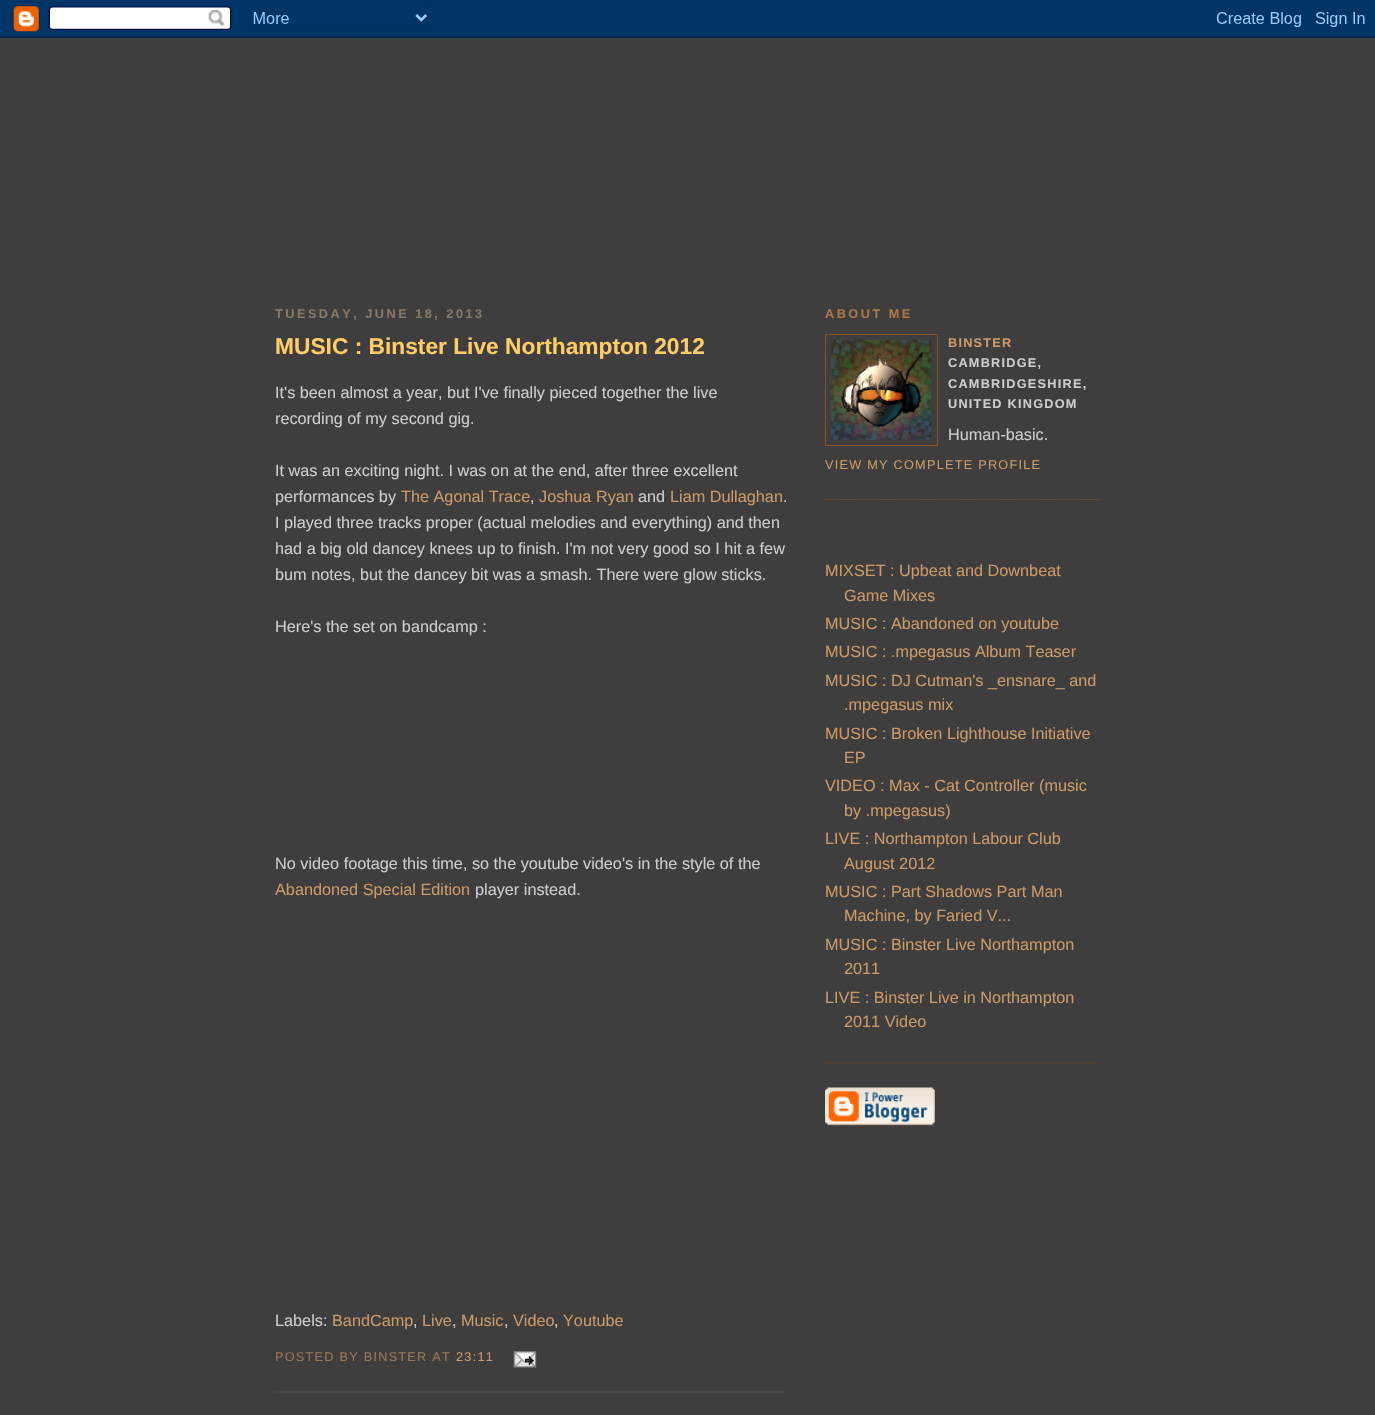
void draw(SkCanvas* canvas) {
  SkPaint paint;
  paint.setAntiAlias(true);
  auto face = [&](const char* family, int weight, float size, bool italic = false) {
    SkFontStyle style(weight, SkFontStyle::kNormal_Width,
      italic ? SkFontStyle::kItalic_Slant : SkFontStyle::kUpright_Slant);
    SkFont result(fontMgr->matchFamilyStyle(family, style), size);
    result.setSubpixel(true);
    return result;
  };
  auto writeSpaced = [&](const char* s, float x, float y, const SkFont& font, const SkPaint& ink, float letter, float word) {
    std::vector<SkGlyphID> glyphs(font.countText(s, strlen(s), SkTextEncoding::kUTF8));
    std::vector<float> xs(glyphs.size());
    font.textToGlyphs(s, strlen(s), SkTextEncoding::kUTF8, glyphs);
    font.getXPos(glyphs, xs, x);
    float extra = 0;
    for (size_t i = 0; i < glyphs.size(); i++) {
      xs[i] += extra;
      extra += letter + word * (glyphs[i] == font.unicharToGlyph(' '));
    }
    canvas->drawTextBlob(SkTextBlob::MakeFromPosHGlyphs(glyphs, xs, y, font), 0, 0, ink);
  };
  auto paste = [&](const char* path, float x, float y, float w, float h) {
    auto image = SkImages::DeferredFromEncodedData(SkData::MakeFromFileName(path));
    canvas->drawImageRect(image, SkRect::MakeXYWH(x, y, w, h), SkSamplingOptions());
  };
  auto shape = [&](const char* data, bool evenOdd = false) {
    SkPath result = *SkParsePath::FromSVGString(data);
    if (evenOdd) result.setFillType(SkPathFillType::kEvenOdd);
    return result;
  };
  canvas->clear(0xff3e3e3e);
  paste("img/1.png", 0, 0, 1375, 38);
  paint.setStroke(true);
  paint.setStrokeWidth(1.2f);
  paint.setColor(0xff665544);
  paint.setPathEffect(SkDashPathEffect::Make({{1.25f, 1.25f}}, 0));
  canvas->drawPath(shape("M275 1392H787.5"), paint);
  paint.setPathEffect(nullptr);
  paste("img/2.png", 513, 1351, 24, 17);
  paint.setColor(0xff885522);
  paint.setPathEffect(SkDashPathEffect::Make({{1.25f, 1.25f}}, 0));
  canvas->drawPath(shape("M825 499.5H1100"), paint);
  paint.setPathEffect(nullptr);
  paint.setStrokeWidth(1);
  canvas->drawRect(SkRect::MakeXYWH(825.5f, 334.5f, 112, 111), paint);
  paste("img/3.png", 831, 340, 101, 100);
  paint.setStrokeWidth(1.2f);
  paint.setColor(0xff774411);
  paint.setPathEffect(SkDashPathEffect::Make({{1.25f, 1.25f}}, 0));
  canvas->drawPath(shape("M825 1063H1100"), paint);
  paint.setPathEffect(nullptr);
  paste("img/4.png", 825, 1087, 110, 39);
  auto f0 = face("Liberation Sans", 700, 12.7f);
  paint.setStroke(false);
  paint.setColor(0xff887766);
  writeSpaced("TUESDAY, JUNE 18, 2013", 275, 318, f0, paint, 2.5f, 0);
  auto f1 = face("Liberation Sans", 700, 22.75f);
  paint.setColor(0xffffcc66);
  canvas->drawString("MUSIC : Binster Live Northampton 2012", 275, 354, f1, paint);
  auto f2 = face("Liberation Sans", 400, 16.25f);
  paint.setColor(0xffcccccc);
  {
    const struct { const char* s; float x, y; } items[] = {
      {"It's been almost a year, but I've finally pieced together the live", 275, 398},
      {"recording of my second gig.", 275, 424},
      {"It was an exciting night. I was on at the end, after three excellent", 275, 476},
      {"performances by", 275, 502},
    };
    for (auto [s, x, y] : items) {
      canvas->drawString(s, x, y, f2, paint);
    }
  }
  paint.setColor(0xffcc9966);
  canvas->drawString("The Agonal Trace", 401, 502, f2, paint);
  paint.setColor(0xffcccccc);
  canvas->drawString(",", 530, 502, f2, paint);
  paint.setColor(0xffcc9966);
  canvas->drawString("Joshua Ryan", 539, 502, f2, paint);
  paint.setColor(0xffcccccc);
  canvas->drawString("and", 638, 502, f2, paint);
  paint.setColor(0xffcc9966);
  canvas->drawString("Liam Dullaghan", 670, 502, f2, paint);
  paint.setColor(0xffcccccc);
  {
    const struct { const char* s; float x, y; } items[] = {
      {".", 783, 502},
      {"I played three tracks proper (actual melodies and everything) and then", 275, 528},
      {"had a big old dancey knees up to finish. I'm not very good so I hit a few", 275, 554},
      {"bum notes, but the dancey bit was a smash. There were glow sticks.", 275, 580},
      {"Here's the set on bandcamp :", 275, 632},
      {"No video footage this time, so the youtube video's in the style of the", 275, 869},
    };
    for (auto [s, x, y] : items) {
      canvas->drawString(s, x, y, f2, paint);
    }
  }
  paint.setColor(0xffcc9966);
  canvas->drawString("Abandoned Special Edition", 275, 895, f2, paint);
  paint.setColor(0xffcccccc);
  canvas->drawString("player instead.", 475, 895, f2, paint);
  canvas->drawString("Labels:", 275, 1326, f2, paint);
  paint.setColor(0xffcc9966);
  canvas->drawString("BandCamp", 332, 1326, f2, paint);
  paint.setColor(0xffcccccc);
  canvas->drawString(",", 413, 1326, f2, paint);
  paint.setColor(0xffcc9966);
  canvas->drawString("Live", 422, 1326, f2, paint);
  paint.setColor(0xffcccccc);
  canvas->drawString(",", 452, 1326, f2, paint);
  paint.setColor(0xffcc9966);
  canvas->drawString("Music", 461, 1326, f2, paint);
  paint.setColor(0xffcccccc);
  canvas->drawString(",", 504, 1326, f2, paint);
  paint.setColor(0xffcc9966);
  canvas->drawString("Video", 513, 1326, f2, paint);
  paint.setColor(0xffcccccc);
  canvas->drawString(",", 554, 1326, f2, paint);
  paint.setColor(0xffcc9966);
  canvas->drawString("Youtube", 563, 1326, f2, paint);
  auto f3 = face("Liberation Sans", 400, 12.7f);
  paint.setColor(0xff997755);
  writeSpaced("POSTED BY BINSTER AT", 275, 1361, f3, paint, 1.25f, 0);
  paint.setColor(0xffcc9966);
  writeSpaced("23:11", 456, 1361, f3, paint, 1.25f, 0);
  paint.setColor(0xffaa7744);
  writeSpaced("ABOUT ME", 825, 318, f0, paint, 2.5f, 0);
  paint.setColor(0xffcc9966);
  writeSpaced("BINSTER", 948, 347, f0, paint, 1.25f, 0);
  paint.setColor(0xffcccccc);
  {
    const struct { const char* s; float x, y; } items[] = {
      {"CAMBRIDGE,", 948, 367},
      {"CAMBRIDGESHIRE,", 948, 388},
      {"UNITED KINGDOM", 948, 408},
    };
    for (auto [s, x, y] : items) {
      writeSpaced(s, x, y, f0, paint, 1.25f, 0);
    }
  }
  canvas->drawString("Human-basic.", 948, 440, f2, paint);
  paint.setColor(0xffcc9966);
  writeSpaced("VIEW MY COMPLETE PROFILE", 825, 469, f3, paint, 1.25f, 0);
  {
    const struct { const char* s; float x, y; } items[] = {
      {"MIXSET : Upbeat and Downbeat", 825, 576},
      {"Game Mixes", 844, 601},
      {"MUSIC : Abandoned on youtube", 825, 629},
      {"MUSIC : .mpegasus Album Teaser", 825, 657},
      {"MUSIC : DJ Cutman's _ensnare_ and", 825, 686},
      {".mpegasus mix", 844, 710},
      {"MUSIC : Broken Lighthouse Initiative", 825, 739},
      {"EP", 844, 763},
      {"VIDEO : Max - Cat Controller (music", 825, 791},
      {"by .mpegasus)", 844, 816},
      {"LIVE : Northampton Labour Club", 825, 844},
      {"August 2012", 844, 869},
      {"MUSIC : Part Shadows Part Man", 825, 897},
      {"Machine, by Faried V...", 844, 921},
      {"MUSIC : Binster Live Northampton", 825, 950},
      {"2011", 844, 974},
      {"LIVE : Binster Live in Northampton", 825, 1003},
      {"2011 Video", 844, 1027},
    };
    for (auto [s, x, y] : items) {
      canvas->drawString(s, x, y, f2, paint);
    }
  }
}
